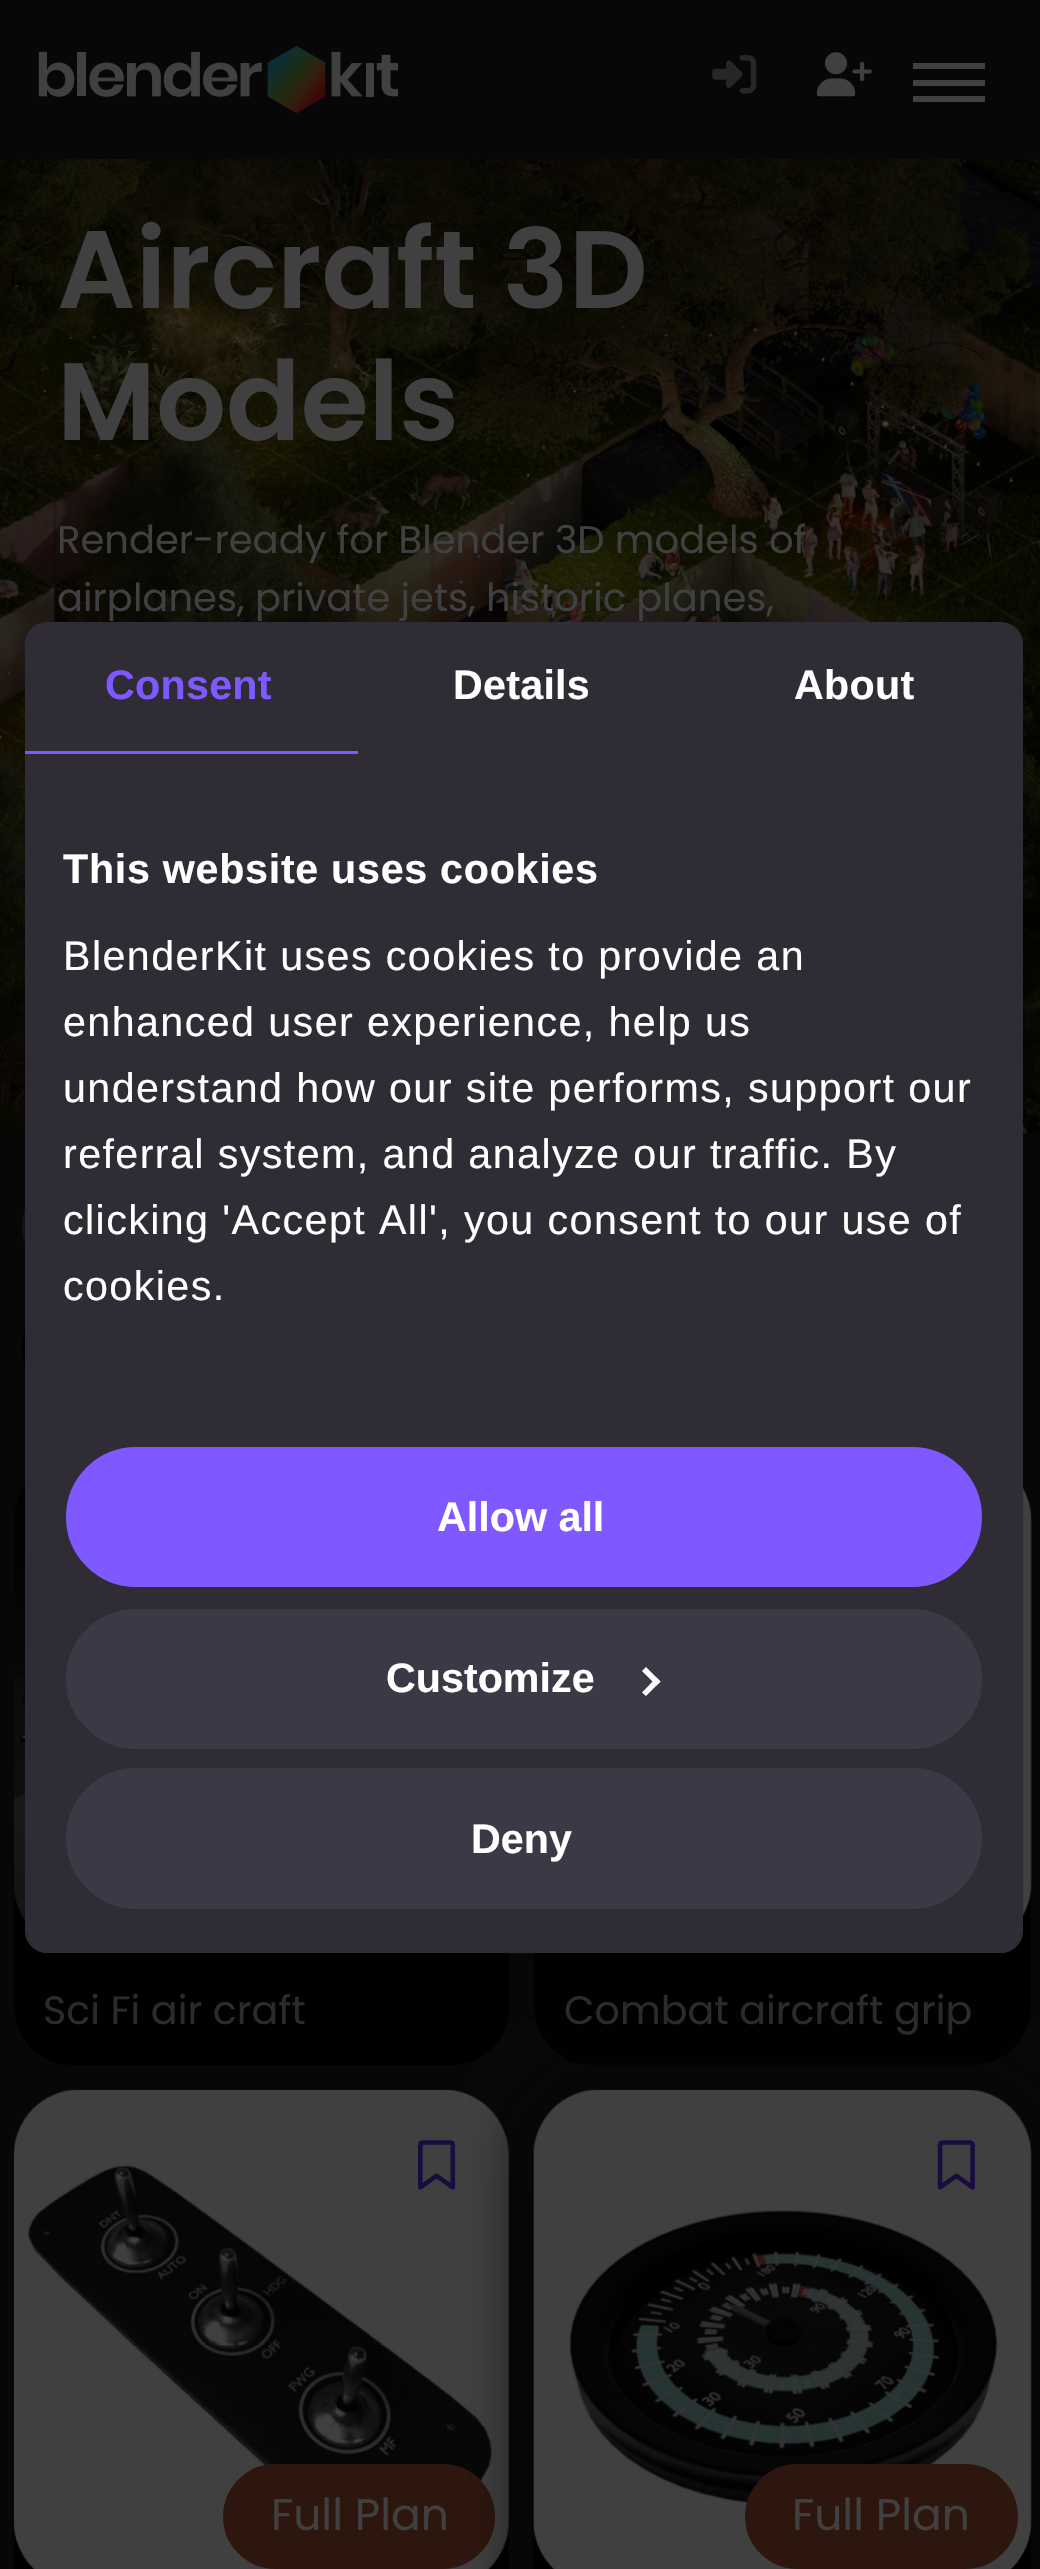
void draw(SkCanvas* canvas) {
  SkPaint paint;
  paint.setAntiAlias(true);
  auto face = [&](const char* family, int weight, float size, bool italic = false) {
    SkFontStyle style(weight, SkFontStyle::kNormal_Width,
      italic ? SkFontStyle::kItalic_Slant : SkFontStyle::kUpright_Slant);
    SkFont result(fontMgr->matchFamilyStyle(family, style), size);
    result.setSubpixel(true);
    return result;
  };
  auto writeSpaced = [&](const char* s, float x, float y, const SkFont& font, const SkPaint& ink, float letter, float word) {
    std::vector<SkGlyphID> glyphs(font.countText(s, strlen(s), SkTextEncoding::kUTF8));
    std::vector<float> xs(glyphs.size());
    font.textToGlyphs(s, strlen(s), SkTextEncoding::kUTF8, glyphs);
    font.getXPos(glyphs, xs, x);
    float extra = 0;
    for (size_t i = 0; i < glyphs.size(); i++) {
      xs[i] += extra;
      extra += letter + word * (glyphs[i] == font.unicharToGlyph(' '));
    }
    canvas->drawTextBlob(SkTextBlob::MakeFromPosHGlyphs(glyphs, xs, y, font), 0, 0, ink);
  };
  auto paste = [&](const char* path, float x, float y, float w, float h) {
    auto image = SkImages::DeferredFromEncodedData(SkData::MakeFromFileName(path));
    canvas->drawImageRect(image, SkRect::MakeXYWH(x, y, w, h), SkSamplingOptions());
  };
  auto shape = [&](const char* data, bool evenOdd = false) {
    SkPath result = *SkParsePath::FromSVGString(data);
    if (evenOdd) result.setFillType(SkPathFillType::kEvenOdd);
    return result;
  };
  canvas->clear(0xff070707);
  paste("img/1.png", 38, 46, 361, 67);
  paste("img/2.png", 712, 55, 45, 39);
  paste("img/3.png", 816, 52, 56, 45);
  {
    const struct { float x, y, w, h; SkColor color; } items[] = {
      {913, 63, 72, 6, 0xff404040},
      {913, 80, 72, 6, 0xff404040},
      {913, 96, 72, 6, 0xff404040},
    };
    for (auto [x, y, w, h, color] : items) {
      paint.setColor(color);
      canvas->drawRect(SkRect::MakeXYWH(x, y, w, h), paint);
    }
  }
  paste("img/4.png", 0, 159, 1040, 974);
  paint.setColor(0xff131313);
  canvas->drawPath(shape("M71.5 1177H366V1276H71.5C44 1276 22 1254 22 1226.5C22 1199 44 1177 71.5 1177Z"), paint);
  paint.setStroke(true);
  paint.setStrokeWidth(8);
  paint.setColor(0xff000000);
  canvas->drawPath(shape("M77 1297H692V1399H77C49 1399 26 1376 26 1348C26 1320 49 1297 77 1297Z"), paint);
  paint.setStroke(false);
  canvas->drawRoundRect(SkRect::MakeXYWH(14, 1455, 495, 610), 66, 66, paint);
  paint.setColor(0xff0a0a0a);
  canvas->drawRoundRect(SkRect::MakeXYWH(14, 1455, 495, 495), 66, 66, paint);
  paint.setColor(0xff000000);
  canvas->drawRoundRect(SkRect::MakeXYWH(14, 1950, 495, 115), 57.5f, 57.5f, paint);
  canvas->drawRoundRect(SkRect::MakeXYWH(534, 1455, 497, 610), 66, 66, paint);
  paint.setColor(0xff0a0a0a);
  canvas->drawRoundRect(SkRect::MakeXYWH(534, 1455, 497, 495), 66, 66, paint);
  paint.setColor(0xff000000);
  canvas->drawRoundRect(SkRect::MakeXYWH(534, 1950, 497, 115), 57.5f, 57.5f, paint);
  paint.setColor(0xff2f2c35);
  canvas->drawRoundRect(SkRect::MakeXYWH(25, 622, 998, 1331), 22, 22, paint);
  paint.setColor(0xff7f58ff);
  canvas->drawRect(SkRect::MakeXYWH(25, 751, 333, 3), paint);
  canvas->save();
  canvas->clipPath(shape("M47 622H1001C1013 622 1023 632 1023 644V1931C1023 1943 1013 1953 1001 1953H47C35 1953 25 1943 25 1931V644C25 632 35 622 47 622Z"), true);
  paint.setColor(0xff2f2c35);
  canvas->drawRect(SkRect::MakeXYWH(36, 1950, 976, 3), paint);
  canvas->restore();
  paint.setColor(0xff7f58ff);
  canvas->drawRoundRect(SkRect::MakeXYWH(69, 1450, 910, 134), 67, 67, paint);
  paint.setStroke(true);
  paint.setStrokeWidth(6);
  canvas->drawRoundRect(SkRect::MakeXYWH(69, 1450, 910, 134), 67, 67, paint);
  paint.setStroke(false);
  paint.setColor(0xff3d3846);
  canvas->drawRoundRect(SkRect::MakeXYWH(69, 1612, 910, 134), 67, 67, paint);
  paint.setStroke(true);
  canvas->drawRoundRect(SkRect::MakeXYWH(69, 1612, 910, 134), 67, 67, paint);
  paint.setStroke(false);
  paint.setColor(0xffffffff);
  canvas->drawPath(shape("M646 1667L660.5 1681.5L656.5 1685.5L642 1671Z"), paint);
  canvas->drawPath(shape("M656.5 1677.5L660.5 1681.5L646 1696L642 1692.5Z"), paint);
  paint.setColor(0xff3d3846);
  canvas->drawRoundRect(SkRect::MakeXYWH(69, 1771, 910, 135), 67.5f, 67.5f, paint);
  paint.setStroke(true);
  canvas->drawRoundRect(SkRect::MakeXYWH(69, 1771, 910, 135), 67.5f, 67.5f, paint);
  paste("img/5.png", 14, 1482, 11, 439);
  paste("img/6.png", 1023, 1487, 9, 429);
  paint.setStroke(false);
  paint.setColor(0xff000000);
  canvas->drawRoundRect(SkRect::MakeXYWH(14, 2090, 495, 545), 66, 66, paint);
  paint.setColor(0xff0a0a0a);
  canvas->drawRoundRect(SkRect::MakeXYWH(14, 2090, 495, 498), 66, 66, paint);
  paste("img/7.png", 14, 2090, 495, 479);
  paste("img/8.png", 418, 2140, 38, 50);
  paint.setColor(0xff2d160d);
  canvas->drawRoundRect(SkRect::MakeXYWH(224.5f, 2465.5f, 269, 102), 51, 51, paint);
  paint.setStroke(true);
  paint.setStrokeWidth(3);
  canvas->drawRoundRect(SkRect::MakeXYWH(224.5f, 2465.5f, 269, 102), 51, 51, paint);
  paint.setStroke(false);
  paint.setColor(0xc7050505);
  paint.setMaskFilter(SkMaskFilter::MakeBlur(kNormal_SkBlurStyle, 28.5f));
  canvas->drawRoundRect(SkRect::MakeXYWH(520, 2076, 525, 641), 80, 80, paint);
  paint.setMaskFilter(nullptr);
  paint.setColor(0xff000000);
  canvas->drawRoundRect(SkRect::MakeXYWH(534, 2090, 497, 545), 66, 66, paint);
  paint.setColor(0xff0a0a0a);
  canvas->drawRoundRect(SkRect::MakeXYWH(534, 2090, 497, 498), 66, 66, paint);
  paste("img/9.png", 533, 2090, 499, 479);
  paste("img/10.png", 937, 2140, 38, 50);
  paint.setColor(0xff2d160d);
  canvas->drawRoundRect(SkRect::MakeXYWH(746.5f, 2465.5f, 270, 102), 51, 51, paint);
  paint.setStroke(true);
  canvas->drawRoundRect(SkRect::MakeXYWH(746.5f, 2465.5f, 270, 102), 51, 51, paint);
  auto f0 = face("Poppins", 600, 110);
  paint.setStroke(false);
  paint.setColor(0xff404040);
  canvas->drawString("Aircraft 3D", 57, 308, f0, paint);
  canvas->drawString("Models", 57, 440, f0, paint);
  auto f1 = face("Poppins", 400, 38.5f);
  canvas->drawString("Render-ready for Blender 3D models of", 57, 553, f1, paint);
  canvas->drawString("airplanes, private jets, historic planes,", 57, 611, f1, paint);
  auto f2 = face("Liberation Sans", 700, 41.25f);
  paint.setColor(0xff7f58ff);
  writeSpaced("Consent", 105, 699, f2, paint, 0.25f, 0);
  paint.setColor(0xffffffff);
  writeSpaced("Details", 453, 699, f2, paint, 0.25f, 0);
  writeSpaced("About", 794, 699, f2, paint, 0.25f, 0);
  writeSpaced("This website uses cookies", 63, 883, f2, paint, 0.7f, 0);
  auto f3 = face("Liberation Sans", 400, 41.25f);
  {
    const struct { const char* s; float x, y; } items[] = {
      {"BlenderKit uses cookies to provide an", 63, 970},
      {"enhanced user experience, help us", 63, 1036},
      {"understand how our site performs, support our", 63, 1102},
      {"referral system, and analyze our traffic. By", 63, 1168},
      {"clicking 'Accept All', you consent to our use of", 63, 1234},
      {"cookies.", 63, 1300},
    };
    for (auto [s, x, y] : items) {
      writeSpaced(s, x, y, f3, paint, 1.4f, 0);
    }
  }
  {
    const struct { const char* s; float x, y; } items[] = {
      {"Allow all", 437, 1531},
      {"Customize", 386, 1692},
      {"Deny", 471, 1853},
    };
    for (auto [s, x, y] : items) {
      canvas->drawString(s, x, y, f2, paint);
    }
  }
  auto f4 = face("Poppins", 400, 39.6f);
  paint.setColor(0xff2b2b2b);
  canvas->drawString("Sci Fi air craft", 43, 2024, f4, paint);
  canvas->drawString("Combat aircraft grip", 564, 2024, f4, paint);
  auto f5 = face("Poppins", 400, 44);
  paint.setColor(0xff404040);
  canvas->drawString("Full Plan", 271, 2530, f5, paint);
  canvas->drawString("Full Plan", 792, 2530, f5, paint);
}
